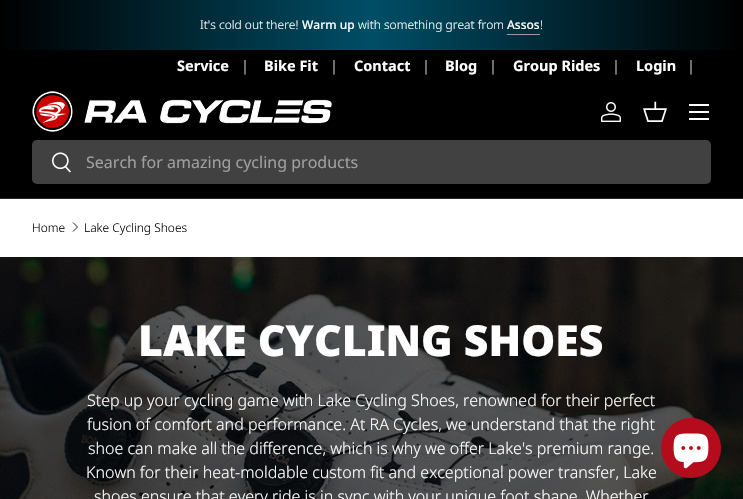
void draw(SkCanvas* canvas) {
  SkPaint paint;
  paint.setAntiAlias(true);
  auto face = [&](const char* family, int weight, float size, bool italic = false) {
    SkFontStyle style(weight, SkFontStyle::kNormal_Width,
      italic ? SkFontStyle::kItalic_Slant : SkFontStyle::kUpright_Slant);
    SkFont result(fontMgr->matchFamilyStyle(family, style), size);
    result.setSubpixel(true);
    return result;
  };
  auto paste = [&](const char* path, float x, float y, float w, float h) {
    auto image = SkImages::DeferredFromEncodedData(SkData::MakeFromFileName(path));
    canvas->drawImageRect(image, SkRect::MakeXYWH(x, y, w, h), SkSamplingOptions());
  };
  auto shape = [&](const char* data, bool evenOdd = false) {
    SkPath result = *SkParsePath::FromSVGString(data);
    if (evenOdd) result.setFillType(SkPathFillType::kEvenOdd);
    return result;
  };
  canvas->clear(0xffffffff);
  {
    const SkColor colors[] = {0xff000000, 0xff004e66, 0xff000000};
    const float stops[] = {0, 0.5f, 1};
    const SkPoint ends[] = {{0, 25}, {743, 25}};
    paint.setShader(SkGradientShader::MakeLinear(ends, colors, stops, 3, SkTileMode::kClamp));
    paint.setAlpha(255);
  }
  canvas->drawRect(SkRect::MakeXYWH(0, 0, 743, 50), paint);
  paint.setShader(nullptr);
  {
    const struct { float x, y, w, h; SkColor color; } items[] = {
      {507, 34, 33, 1, 0xff999999},
      {0, 50, 743, 148, 0xff000000},
      {0, 198, 743, 1, 0xff262626},
    };
    for (auto [x, y, w, h, color] : items) {
      paint.setColor(color);
      canvas->drawRect(SkRect::MakeXYWH(x, y, w, h), paint);
    }
  }
  paste("img/1.png", 32, 91, 300, 41);
  paste("img/2.png", 601, 102, 20, 20);
  paste("img/3.png", 643, 101, 24, 21);
  {
    const struct { float x, y, w, h; SkColor color; } items[] = {
      {689, 104, 20, 2, 0xffffffff},
      {689, 118, 20, 2, 0xffffffff},
      {689, 111, 20, 2, 0xffffffff},
    };
    for (auto [x, y, w, h, color] : items) {
      paint.setColor(color);
      canvas->drawRect(SkRect::MakeXYWH(x, y, w, h), paint);
    }
  }
  paint.setColor(0xff414141);
  canvas->drawRoundRect(SkRect::MakeXYWH(32, 140, 679, 44), 5, 5, paint);
  paste("img/4.png", 52, 152, 19, 21);
  paint.setStroke(true);
  paint.setStrokeWidth(0.9f);
  paint.setColor(0xff090302);
  canvas->drawPath(shape("M73 222.5L77.5 227L73 231.5"), paint);
  paste("img/5.png", 0, 257, 743, 242);
  paint.setStroke(false);
  paint.setColor(0xffb40c1c);
  canvas->drawCircle(691, 448, 30, paint);
  paste("img/6.png", 673, 433, 36, 36);
  auto f0 = face("Noto Sans", 300, 12);
  paint.setColor(0xffffffff);
  canvas->drawString("It's cold out there!", 200, 29, f0, paint);
  auto f1 = face("Noto Sans", 500, 12);
  canvas->drawString("Warm up", 302, 29, f1, paint);
  canvas->drawString("with something great from", 358, 29, f0, paint);
  canvas->drawString("Assos", 507, 29, f1, paint);
  canvas->drawString("!", 540, 29, f0, paint);
  auto f2 = face("Noto Sans", 700, 14.5f);
  canvas->drawString("Service", 177, 71, f2, paint);
  auto f3 = face("Noto Sans", 400, 14.5f);
  paint.setColor(0xffb3b3b3);
  canvas->drawString("|", 241, 71, f3, paint);
  paint.setColor(0xffffffff);
  canvas->drawString("Bike Fit", 264, 71, f2, paint);
  paint.setColor(0xffb3b3b3);
  canvas->drawString("|", 330, 71, f3, paint);
  paint.setColor(0xffffffff);
  canvas->drawString("Contact", 354, 71, f2, paint);
  paint.setColor(0xffb3b3b3);
  canvas->drawString("|", 422, 71, f3, paint);
  paint.setColor(0xffffffff);
  canvas->drawString("Blog", 445, 71, f2, paint);
  paint.setColor(0xffb3b3b3);
  canvas->drawString("|", 489, 71, f3, paint);
  paint.setColor(0xffffffff);
  canvas->drawString("Group Rides", 513, 71, f2, paint);
  paint.setColor(0xffb3b3b3);
  canvas->drawString("|", 612, 71, f3, paint);
  paint.setColor(0xffffffff);
  canvas->drawString("Login", 636, 71, f2, paint);
  paint.setColor(0xffb3b3b3);
  canvas->drawString("|", 687, 71, f3, paint);
  auto f4 = face("Noto Sans", 400, 16);
  paint.setColor(0xffa0a0a0);
  canvas->drawString("Search for amazing cycling products", 86, 168, f4, paint);
  paint.setColor(0xff090302);
  canvas->drawString("Home", 32, 232, f0, paint);
  canvas->drawString("Lake Cycling Shoes", 84, 232, f0, paint);
  auto f5 = face("Noto Sans", 900, 42.75f);
  paint.setColor(0xffffffff);
  canvas->drawString("LAKE CYCLING SHOES", 138, 356, f5, paint);
  auto f6 = face("Noto Sans", 300, 16);
  {
    const struct { const char* s; float x, y; } items[] = {
      {"Step up your cycling game with Lake Cycling Shoes, renowned for their perfect", 87, 406},
      {"fusion of comfort and performance. At RA Cycles, we understand that the right", 87, 430},
      {"shoe can make all the difference, which is why we offer Lake's premium range.", 88, 454},
      {"Known for their heat-moldable custom fit and exceptional power transfer, Lake", 86, 478},
      {"shoes ensure that every ride is in sync with your unique foot shape. Whether", 94, 502},
    };
    for (auto [s, x, y] : items) {
      canvas->drawString(s, x, y, f6, paint);
    }
  }
}
